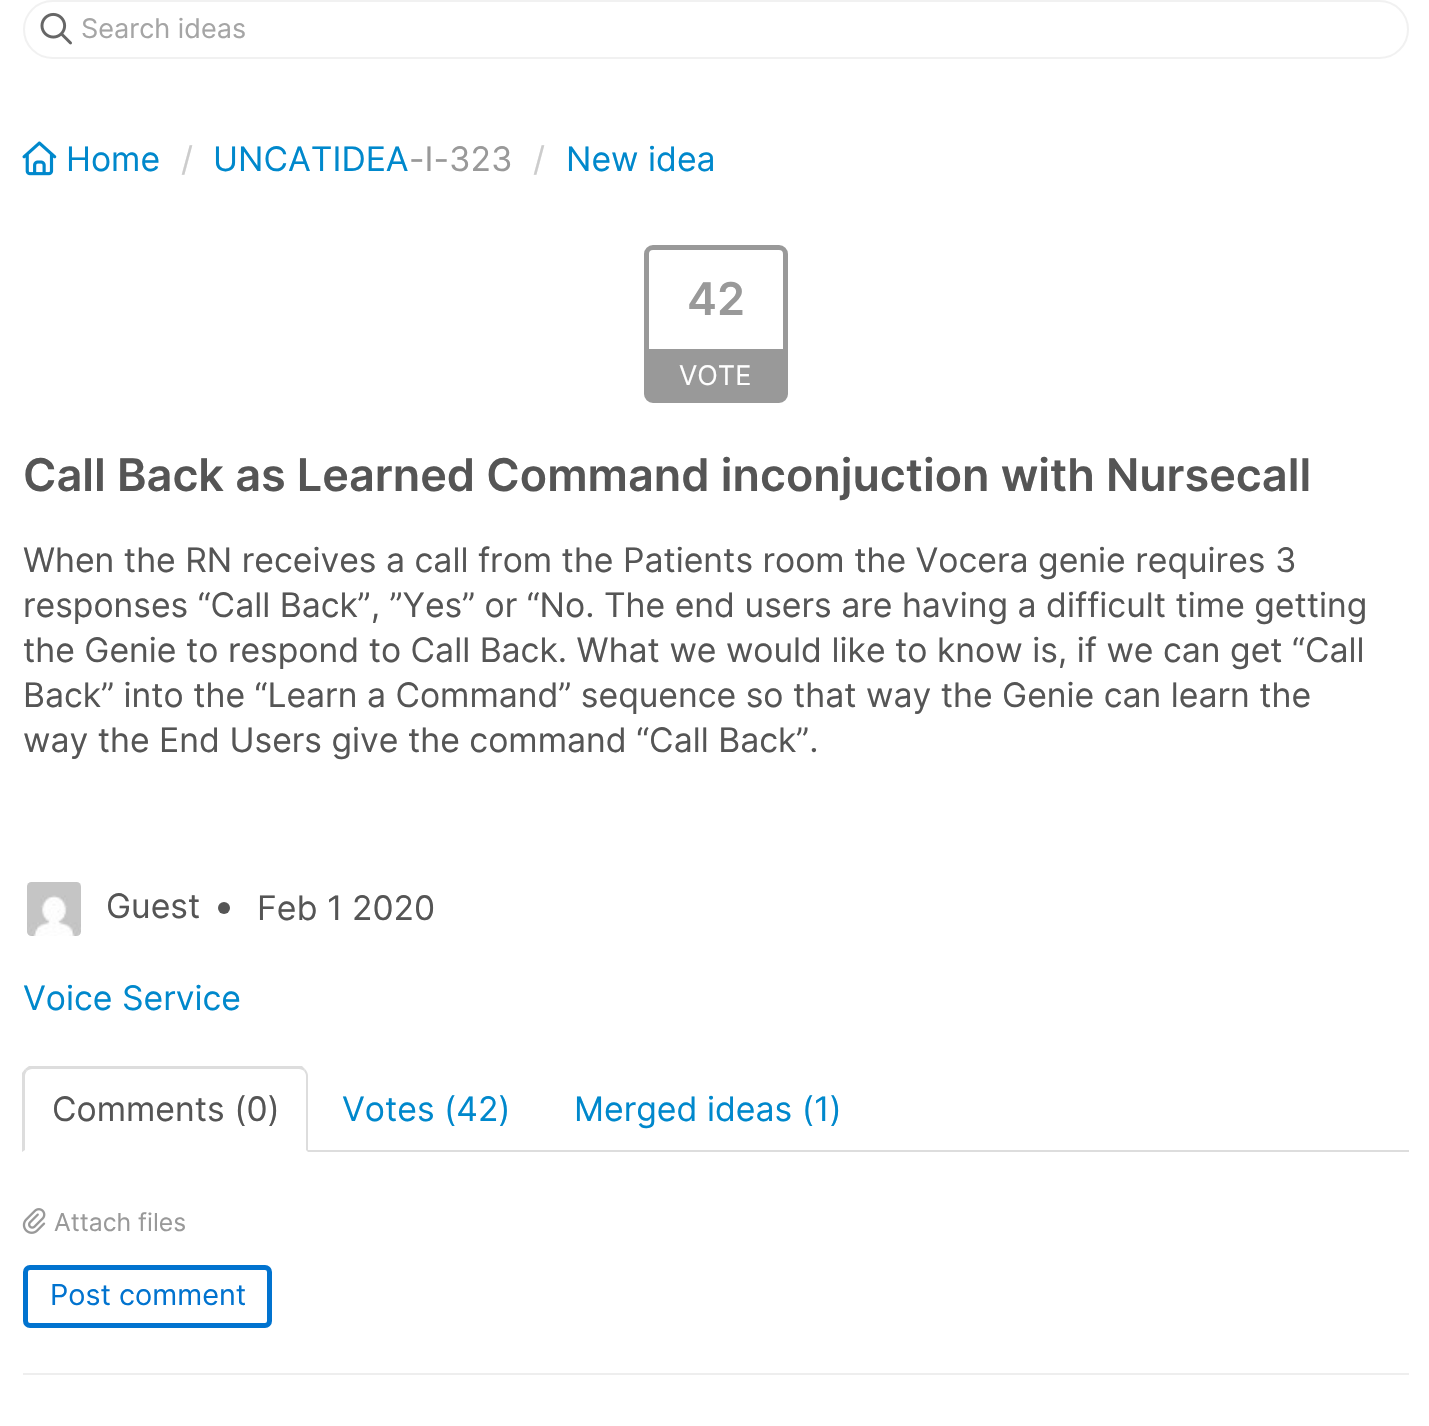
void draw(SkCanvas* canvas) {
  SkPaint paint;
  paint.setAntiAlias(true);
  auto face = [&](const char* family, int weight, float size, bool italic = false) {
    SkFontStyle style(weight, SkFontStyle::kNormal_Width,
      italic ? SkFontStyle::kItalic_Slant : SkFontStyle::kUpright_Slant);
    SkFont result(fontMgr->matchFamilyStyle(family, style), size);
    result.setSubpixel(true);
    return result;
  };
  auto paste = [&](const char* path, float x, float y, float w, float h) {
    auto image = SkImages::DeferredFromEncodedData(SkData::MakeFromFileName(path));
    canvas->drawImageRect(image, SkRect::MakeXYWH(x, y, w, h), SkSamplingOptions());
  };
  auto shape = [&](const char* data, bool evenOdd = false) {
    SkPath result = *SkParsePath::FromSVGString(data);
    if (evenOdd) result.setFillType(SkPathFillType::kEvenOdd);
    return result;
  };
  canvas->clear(0xffffffff);
  paint.setStroke(true);
  paint.setStrokeWidth(2);
  paint.setColor(0xfff1f1f1);
  canvas->drawRoundRect(SkRect::MakeXYWH(24, 1, 1384, 57), 28.5f, 28.5f, paint);
  paste("img/1.png", 40, 12, 32, 33);
  paste("img/2.png", 22, 141, 35, 35);
  paint.setStrokeWidth(5);
  paint.setColor(0xff999999);
  canvas->drawRoundRect(SkRect::MakeXYWH(646.5f, 247.5f, 139, 153), 6.5f, 6.5f, paint);
  paint.setStroke(false);
  canvas->drawRect(SkRect::MakeXYWH(649, 349, 134, 49), paint);
  paint.setColor(0xffeeeeee);
  canvas->drawRect(SkRect::MakeXYWH(23, 1373, 1386, 2), paint);
  paste("img/3.png", 27, 882, 54, 54);
  paint.setColor(0xff555555);
  canvas->drawCircle(224, 908, 6, paint);
  paint.setColor(0xffdddddd);
  canvas->drawRect(SkRect::MakeXYWH(308, 1150, 1101, 2), paint);
  canvas->drawPath(shape("M32 1069C30 1069 28 1070 27 1071L25 1069L29 1066H302L305 1069L304 1071C303 1070 301 1069 299 1069Z"), paint);
  canvas->drawPath(shape("M305 1069C307 1071 308 1074 308 1076V1152L306 1150V1076C306 1074 305 1072 304 1071Z"), paint);
  canvas->drawPath(shape("M22 1152V1073L25 1069L27 1071C26 1072 25 1074 25 1076V1150Z"), paint);
  paste("img/4.png", 22, 1208, 24, 26);
  paint.setStroke(true);
  paint.setColor(0xff0173cf);
  canvas->drawRoundRect(SkRect::MakeXYWH(25.5f, 1267.5f, 244, 58), 4.5f, 4.5f, paint);
  auto f0 = face("Inter", 400, 27);
  paint.setStroke(false);
  paint.setColor(0xffa5a5a5);
  canvas->drawString("Search ideas", 81, 38, f0, paint);
  auto f1 = face("Inter", 400, 33.75f);
  paint.setColor(0xff0088cc);
  canvas->drawString("Home", 66, 171, f1, paint);
  paint.setColor(0xffcccccc);
  canvas->drawString("/", 181, 171, f1, paint);
  paint.setColor(0xff0088cc);
  canvas->drawString("UNCATIDEA", 213, 171, f1, paint);
  paint.setColor(0xff999999);
  canvas->drawString("-I-323", 409, 171, f1, paint);
  paint.setColor(0xffcccccc);
  canvas->drawString("/", 533, 171, f1, paint);
  paint.setColor(0xff0088cc);
  canvas->drawString("New idea", 566, 171, f1, paint);
  auto f2 = face("Inter", 600, 45);
  paint.setColor(0xff999999);
  canvas->drawString("42", 687, 315, f2, paint);
  paint.setColor(0xffffffff);
  canvas->drawString("VOTE", 679, 385, f0, paint);
  paint.setColor(0xff555555);
  canvas->drawString("Call Back as Learned Command inconjuction with Nursecall", 23, 491, f2, paint);
  {
    const struct { const char* s; float x, y; } items[] = {
      {"When the RN receives a call from the Patients room the Vocera genie requires 3", 23, 572},
      {"responses “Call Back”, ”Yes” or “No. The end users are having a difficult time getting", 23, 617},
      {"the Genie to respond to Call Back. What we would like to know is, if we can get “Call", 23, 662},
      {"Back” into the “Learn a Command” sequence so that way the Genie can learn the", 23, 707},
      {"way the End Users give the command “Call Back”.", 23, 752},
      {"Guest", 106, 918},
      {"Feb 1 2020", 257, 920},
    };
    for (auto [s, x, y] : items) {
      canvas->drawString(s, x, y, f1, paint);
    }
  }
  paint.setColor(0xff0088cc);
  canvas->drawString("Voice Service", 23, 1010, f1, paint);
  paint.setColor(0xff555555);
  canvas->drawString("Comments (0)", 52, 1121, f1, paint);
  paint.setColor(0xff0088cc);
  canvas->drawString("Votes (42)", 342, 1121, f1, paint);
  canvas->drawString("Merged ideas (1)", 574, 1121, f1, paint);
  auto f3 = face("Inter", 400, 24.75f);
  paint.setColor(0xff999999);
  canvas->drawString("Attach files", 54, 1231, f3, paint);
  auto f4 = face("Inter", 400, 28.75f);
  paint.setColor(0xff0173cf);
  canvas->drawString("Post comment", 50, 1305, f4, paint);
}
